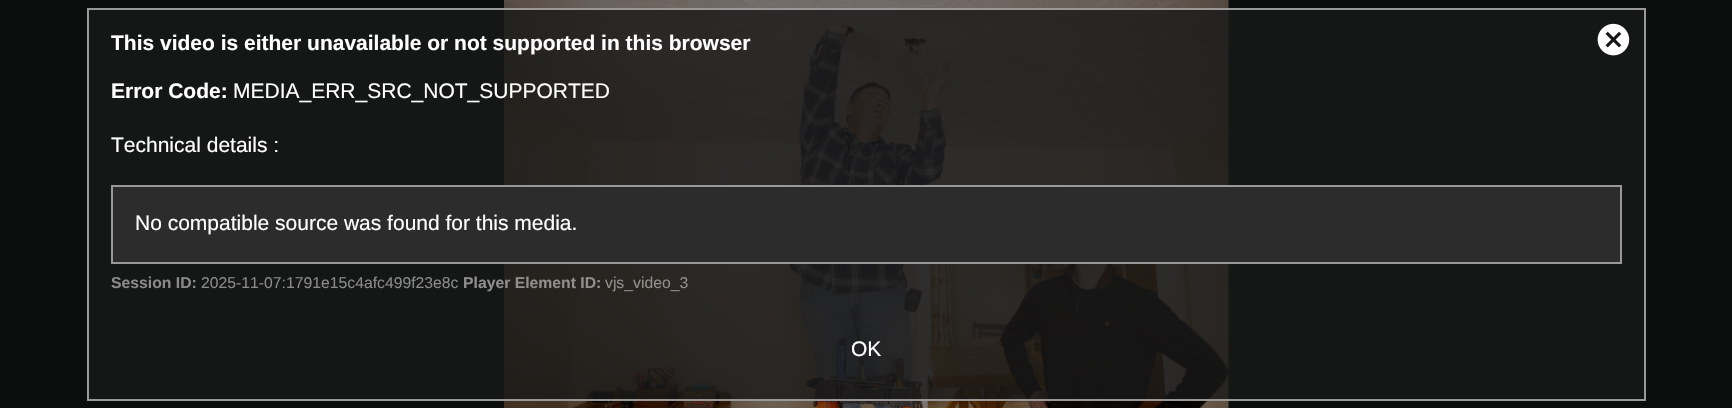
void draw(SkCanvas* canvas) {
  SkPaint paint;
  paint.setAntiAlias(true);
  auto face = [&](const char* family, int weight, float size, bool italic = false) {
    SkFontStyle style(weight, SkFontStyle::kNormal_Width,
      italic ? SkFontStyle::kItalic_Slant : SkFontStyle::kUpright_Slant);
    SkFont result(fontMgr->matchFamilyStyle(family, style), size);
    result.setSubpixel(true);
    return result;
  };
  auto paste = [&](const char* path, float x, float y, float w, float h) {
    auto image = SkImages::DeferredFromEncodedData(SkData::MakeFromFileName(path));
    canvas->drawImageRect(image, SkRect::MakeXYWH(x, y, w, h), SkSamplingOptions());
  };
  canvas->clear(0xff0b0e0c);
  paint.setColor(0xff151616);
  canvas->drawRect(SkRect::MakeXYWH(89, 10, 1555, 389), paint);
  paste("img/1.png", 504, 0, 725, 408);
  paint.setStroke(true);
  paint.setStrokeWidth(2);
  paint.setColor(0xff999999);
  canvas->drawRect(SkRect::MakeXYWH(88, 9, 1557, 391), paint);
  paint.setStroke(false);
  paint.setColor(0xff2c2c2c);
  canvas->drawRect(SkRect::MakeXYWH(112, 186, 1509, 77), paint);
  paint.setStroke(true);
  paint.setColor(0xff999999);
  canvas->drawRect(SkRect::MakeXYWH(112, 186, 1509, 77), paint);
  paste("img/2.png", 1597, 23, 33, 33);
  canvas->save();
  canvas->clipRect(SkRect::MakeXYWH(111, 9, 1511, 299));
  auto f0 = face("Liberation Sans", 700, 21);
  paint.setStroke(false);
  paint.setColor(0xffffffff);
  canvas->drawString("This video is either unavailable or not supported in this browser", 111, 50, f0, paint);
  canvas->restore();
  canvas->drawString("Error Code:", 111, 98, f0, paint);
  auto f1 = face("Liberation Sans", 400, 21);
  {
    const struct { const char* s; float x, y; } items[] = {
      {"MEDIA_ERR_SRC_NOT_SUPPORTED", 233, 98},
      {"Technical details :", 111, 152},
      {"No compatible source was found for this media.", 135, 230},
    };
    for (auto [s, x, y] : items) {
      canvas->drawString(s, x, y, f1, paint);
    }
  }
  auto f2 = face("Liberation Sans", 700, 15.75f);
  paint.setColor(0xff8a8a8a);
  canvas->drawString("Session ID:", 111, 288, f2, paint);
  auto f3 = face("Liberation Sans", 400, 15.75f);
  canvas->drawString("2025-11-07:1791e15c4afc499f23e8c", 201, 288, f3, paint);
  paint.setColor(0xff908f8d);
  canvas->drawString("Player Element ID:", 463, 288, f2, paint);
  canvas->drawString("vjs_video_3", 605, 288, f3, paint);
  paint.setColor(0xffffffff);
  canvas->drawString("OK", 851, 356, f1, paint);
}
